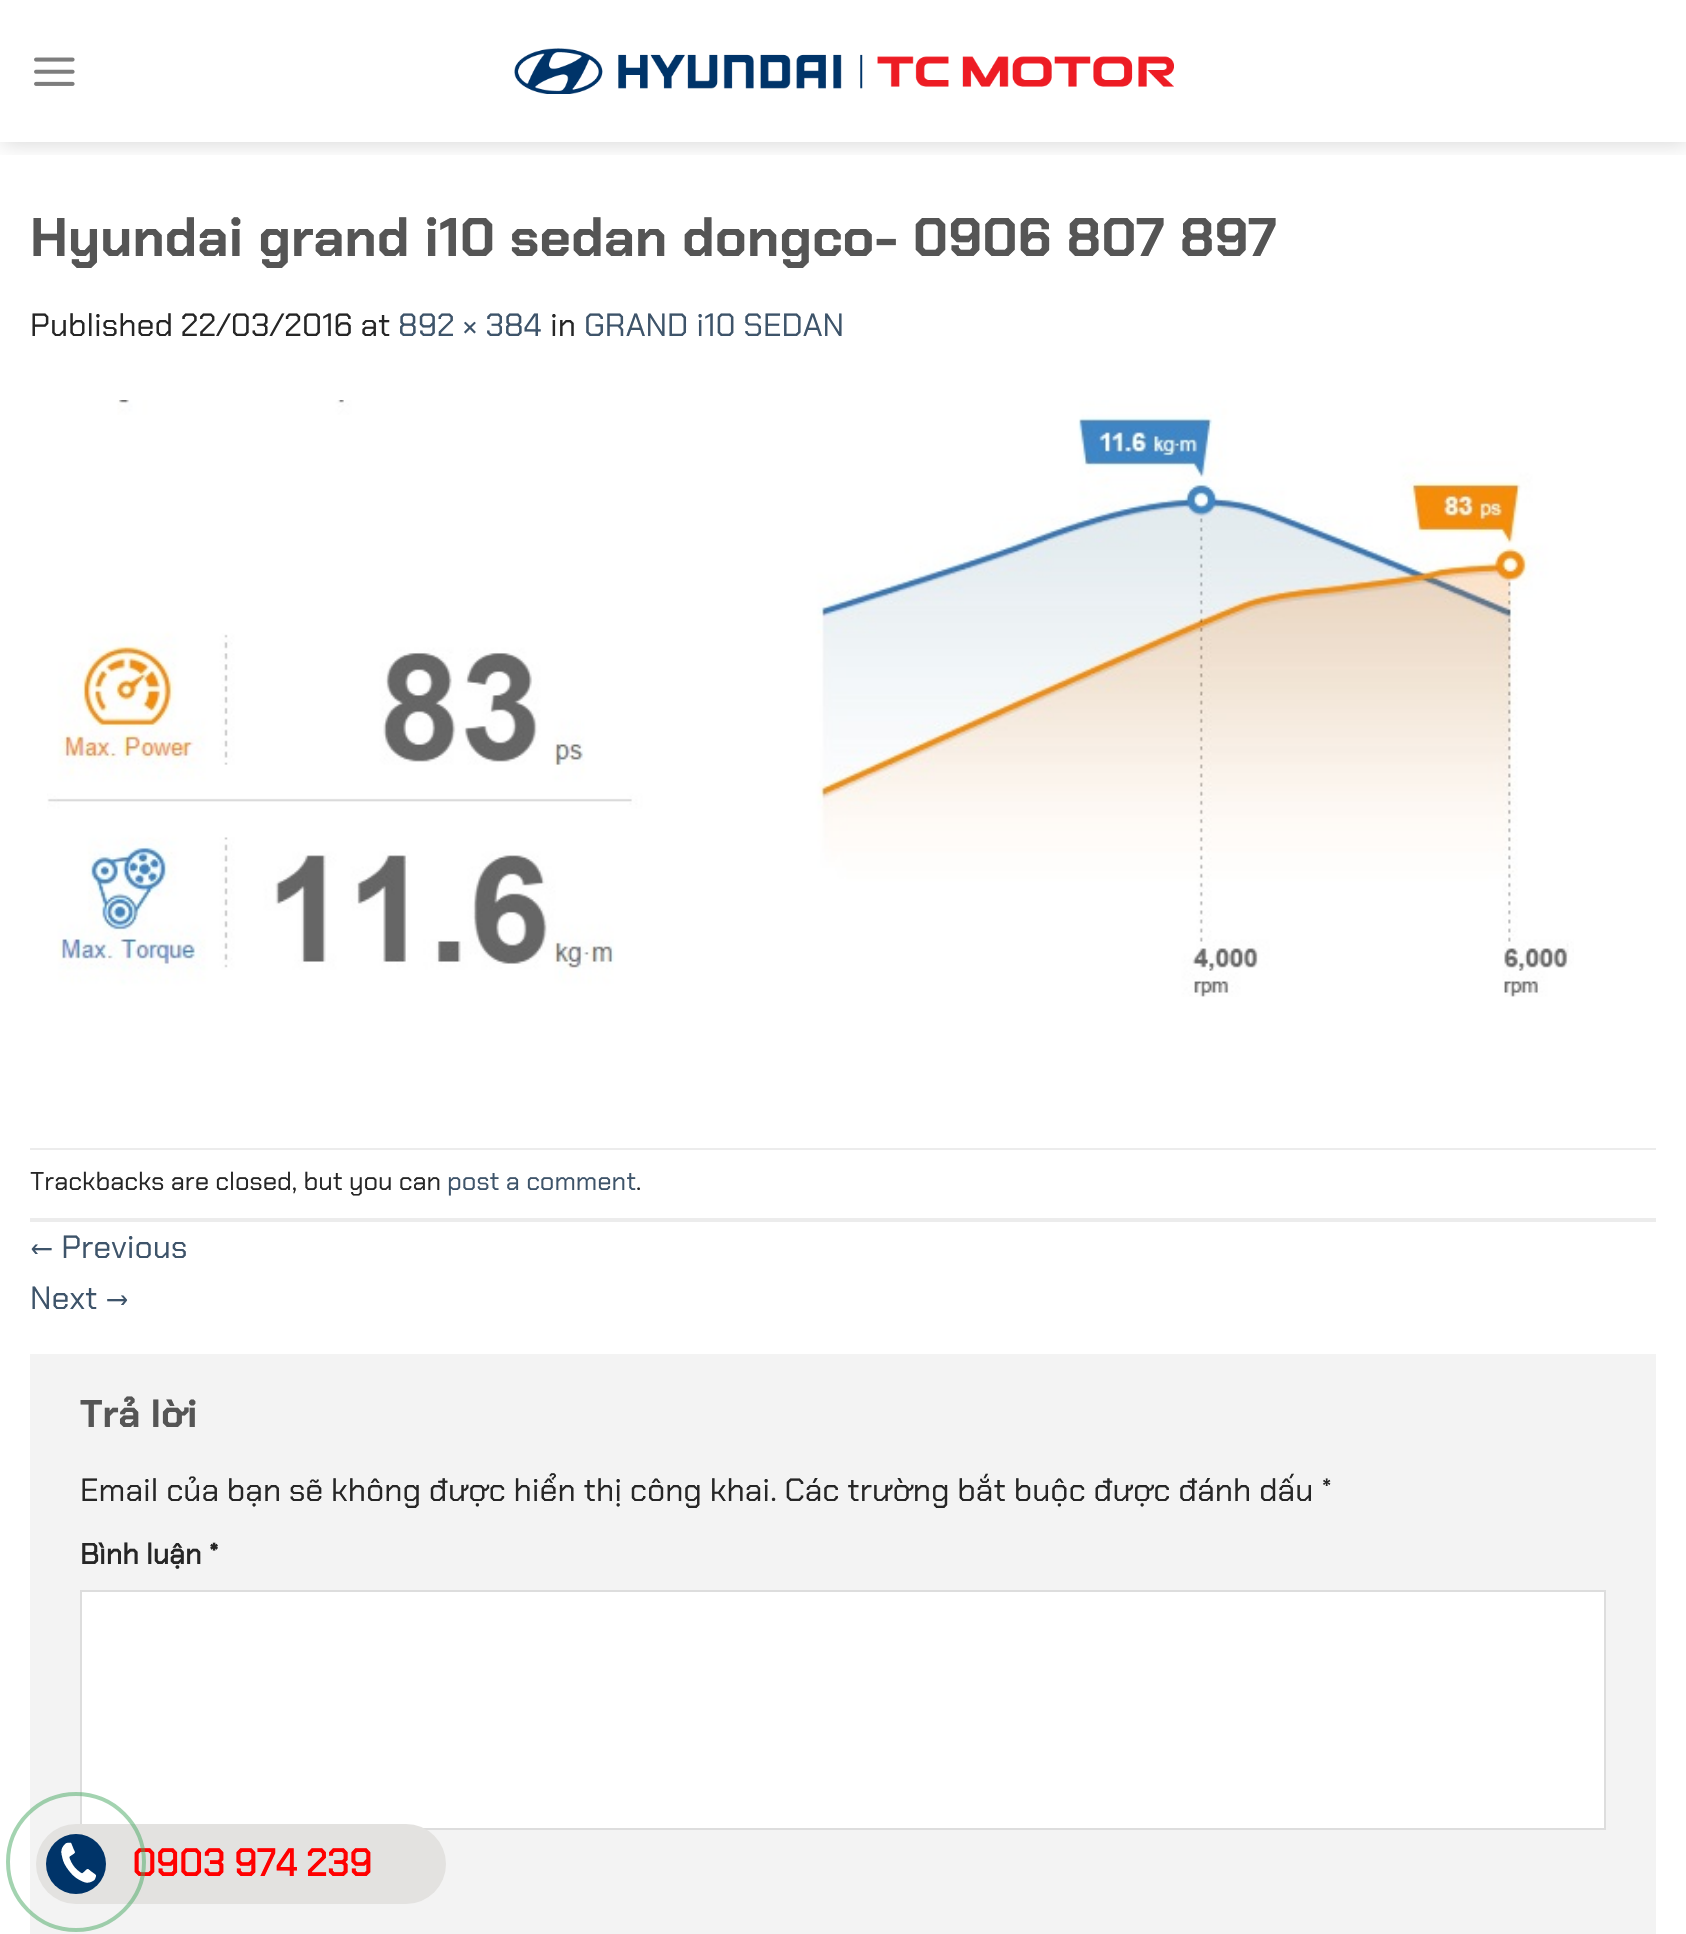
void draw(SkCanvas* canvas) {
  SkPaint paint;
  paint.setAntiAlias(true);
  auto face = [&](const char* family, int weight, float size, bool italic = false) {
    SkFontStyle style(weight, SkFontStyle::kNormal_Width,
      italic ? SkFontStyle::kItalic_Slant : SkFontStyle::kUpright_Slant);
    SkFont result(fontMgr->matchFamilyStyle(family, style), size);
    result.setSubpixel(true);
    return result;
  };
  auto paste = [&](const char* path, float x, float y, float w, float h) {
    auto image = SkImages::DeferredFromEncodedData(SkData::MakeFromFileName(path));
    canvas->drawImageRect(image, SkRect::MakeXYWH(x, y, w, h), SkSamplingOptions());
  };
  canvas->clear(0xffffffff);
  canvas->save();
  canvas->clipRect(SkRect::MakeXYWH(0, 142, 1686, 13));
  paint.setColor(0x26000000);
  paint.setMaskFilter(SkMaskFilter::MakeBlur(kNormal_SkBlurStyle, 10));
  canvas->drawRect(SkRect::MakeXYWH(2, 2, 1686, 142), paint);
  paint.setMaskFilter(nullptr);
  canvas->restore();
  paste("img/1.png", 34, 57, 41, 29);
  paste("img/2.png", 514, 48, 660, 46);
  paste("img/3.png", 47, 400, 1527, 597);
  {
    const struct { float x, y, w, h; SkColor color; } items[] = {
      {30, 1148, 1626, 2, 0xffececec},
      {30, 1218, 1626, 4, 0xffececec},
      {30, 1354, 1626, 580, 0xfff3f3f3},
    };
    for (auto [x, y, w, h, color] : items) {
      paint.setColor(color);
      canvas->drawRect(SkRect::MakeXYWH(x, y, w, h), paint);
    }
  }
  paint.setColor(0xffffffff);
  canvas->drawRect(SkRect::MakeXYWH(81, 1591, 1524, 238), paint);
  paint.setStroke(true);
  paint.setStrokeWidth(2);
  paint.setColor(0xffdddddd);
  canvas->drawRect(SkRect::MakeXYWH(81, 1591, 1524, 238), paint);
  paint.setStroke(false);
  paint.setColor(0xffe3e2e0);
  canvas->drawRoundRect(SkRect::MakeXYWH(36, 1824, 410, 80), 40, 40, paint);
  auto f0 = face("Chakra Petch", 700, 54.4f);
  paint.setColor(0xff555555);
  canvas->drawString("Hyundai grand i10 sedan dongco- 0906 807 897", 30, 256, f0, paint);
  auto f1 = face("Chakra Petch", 400, 32);
  paint.setColor(0xff262626);
  canvas->drawString("Published 22/03/2016 at", 30, 336, f1, paint);
  paint.setColor(0xff3e546a);
  canvas->drawString("892 × 384", 398, 336, f1, paint);
  paint.setColor(0xff262626);
  canvas->drawString("in", 550, 336, f1, paint);
  paint.setColor(0xff3e546a);
  canvas->drawString("GRAND i10 SEDAN", 584, 336, f1, paint);
  auto f2 = face("Chakra Petch", 400, 25.6f);
  paint.setColor(0xff262626);
  canvas->drawString("Trackbacks are closed, but you can", 30, 1190, f2, paint);
  paint.setColor(0xff3e546a);
  canvas->drawString("post a comment", 447, 1190, f2, paint);
  paint.setColor(0xff262626);
  canvas->drawString(".", 636, 1190, f2, paint);
  paint.setColor(0xff3e546a);
  canvas->drawString("← Previous", 30, 1258, f1, paint);
  canvas->drawString("Next →", 30, 1309, f1, paint);
  auto f3 = face("Chakra Petch", 700, 38.5f);
  paint.setColor(0xff555555);
  canvas->drawString("Trả lời", 80, 1427, f3, paint);
  paint.setColor(0xff262626);
  canvas->drawString("Email của bạn sẽ không được hiển thị công khai. Các trường bắt buộc được đánh dấu *", 80, 1501, f1, paint);
  auto f4 = face("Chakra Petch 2", 700, 29);
  canvas->drawString("Bình luận *", 80, 1564, f4, paint);
  auto f5 = face("Chakra Petch 2", 700, 38);
  paint.setColor(0xffff0000);
  canvas->drawString("0903 974 239", 132, 1876, f5, paint);
  paint.setStroke(true);
  paint.setStrokeWidth(4);
  paint.setColor(0x8047a862);
  canvas->drawCircle(76, 1862, 68, paint);
  paint.setStroke(false);
  paint.setColor(0xff003469);
  canvas->drawCircle(76, 1864, 30, paint);
  paste("img/4.png", 61, 1842, 35, 41);
}
